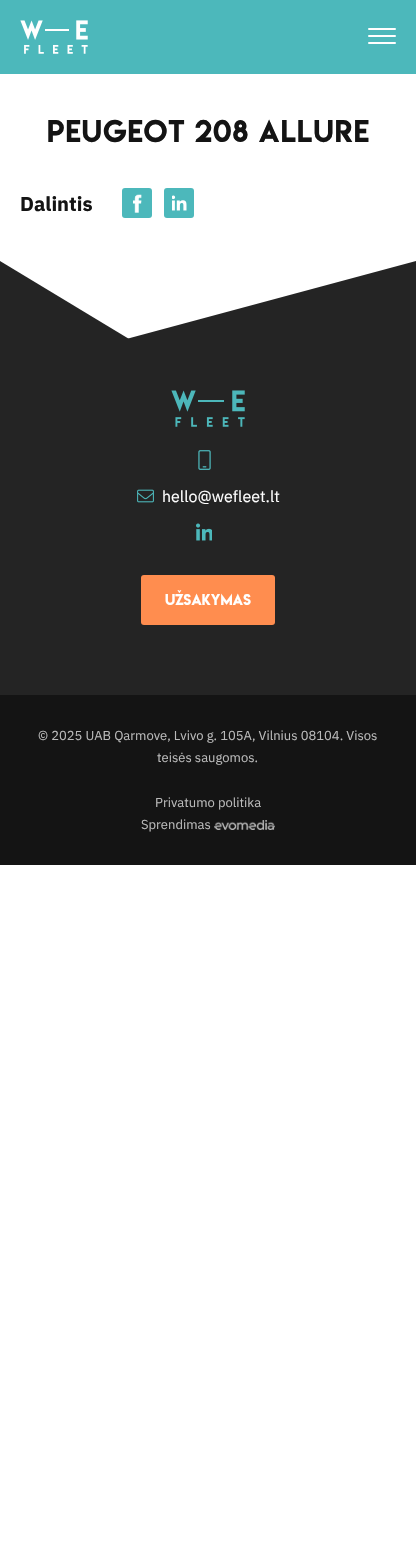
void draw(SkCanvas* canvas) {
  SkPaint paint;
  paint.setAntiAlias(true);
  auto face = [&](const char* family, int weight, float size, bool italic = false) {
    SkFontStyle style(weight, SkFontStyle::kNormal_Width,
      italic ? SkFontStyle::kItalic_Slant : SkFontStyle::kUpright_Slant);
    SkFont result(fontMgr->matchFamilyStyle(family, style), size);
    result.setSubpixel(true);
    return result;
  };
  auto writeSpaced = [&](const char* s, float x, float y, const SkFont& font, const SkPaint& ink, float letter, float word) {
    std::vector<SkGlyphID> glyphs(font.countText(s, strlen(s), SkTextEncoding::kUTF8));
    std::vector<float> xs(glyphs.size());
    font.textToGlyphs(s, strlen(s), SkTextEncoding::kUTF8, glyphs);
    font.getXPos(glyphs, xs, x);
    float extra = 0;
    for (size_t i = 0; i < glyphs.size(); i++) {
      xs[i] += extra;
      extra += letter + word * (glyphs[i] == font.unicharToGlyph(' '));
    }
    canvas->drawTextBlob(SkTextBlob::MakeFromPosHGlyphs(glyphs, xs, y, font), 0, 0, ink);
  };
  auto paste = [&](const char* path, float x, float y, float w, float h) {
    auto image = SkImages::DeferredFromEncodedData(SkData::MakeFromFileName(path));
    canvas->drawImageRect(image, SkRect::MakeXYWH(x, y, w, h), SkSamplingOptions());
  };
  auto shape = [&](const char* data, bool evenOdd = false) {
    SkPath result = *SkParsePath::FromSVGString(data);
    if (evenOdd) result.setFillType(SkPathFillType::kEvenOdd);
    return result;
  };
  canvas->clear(0xffffffff);
  paint.setColor(0xff4cb8bb);
  canvas->drawRect(SkRect::MakeXYWH(0, 0, 416, 74), paint);
  paste("img/1.png", 20, 20, 68, 34);
  paint.setColor(0xffffffff);
  canvas->drawRoundRect(SkRect::MakeXYWH(368, 35, 28, 2), 1, 1, paint);
  canvas->drawRoundRect(SkRect::MakeXYWH(368, 28, 28, 2), 1, 1, paint);
  canvas->drawRoundRect(SkRect::MakeXYWH(368, 42, 28, 2), 1, 1, paint);
  paint.setColor(0xff4cb8bb);
  canvas->drawRoundRect(SkRect::MakeXYWH(122, 188, 30, 30), 3, 3, paint);
  paste("img/2.png", 133, 194, 9, 19);
  canvas->drawRoundRect(SkRect::MakeXYWH(164, 188, 30, 30), 3, 3, paint);
  paste("img/3.png", 172, 195, 15, 16);
  paint.setColor(0xff242424);
  canvas->drawRect(SkRect::MakeXYWH(0, 351, 416, 344), paint);
  canvas->drawPath(shape("M416 373H0L416 261Z"), paint);
  canvas->drawPath(shape("M0 351V261L149 351Z"), paint);
  paste("img/4.png", 171, 390, 74, 37);
  paste("img/5.png", 198, 450, 13, 20);
  paste("img/6.png", 137, 489, 17, 14);
  paste("img/7.png", 196, 523, 16, 18);
  paint.setColor(0xffff8d4f);
  canvas->drawRoundRect(SkRect::MakeXYWH(141, 575, 134, 50), 3, 3, paint);
  paint.setColor(0xff141414);
  canvas->drawRect(SkRect::MakeXYWH(0, 695, 416, 170), paint);
  paste("img/8.png", 214, 820, 61, 10);
  auto f0 = face("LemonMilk", 400, 28);
  writeSpaced("Peugeot 208 Allure", 47, 142, f0, paint, 1, 0);
  auto f1 = face("IBM Plex Sans", 700, 20);
  canvas->drawString("Dalintis", 20, 211, f1, paint);
  auto f2 = face("IBM Plex Sans", 400, 16);
  paint.setColor(0xffffffff);
  canvas->drawString("hello@wefleet.lt", 162, 502, f2, paint);
  auto f3 = face("LemonMilk", 400, 14);
  canvas->drawString("UŽSAKYMAS", 165, 605, f3, paint);
  auto f4 = face("IBM Plex Sans", 400, 13);
  paint.setColor(0xffbababa);
  {
    const struct { const char* s; float x, y; } items[] = {
      {"© 2025 UAB Qarmove, Lvivo g. 105A, Vilnius 08104. Visos", 38, 740},
      {"teisės saugomos.", 157, 762},
      {"Privatumo politika", 155, 807},
      {"Sprendimas", 141, 829},
    };
    for (auto [s, x, y] : items) {
      canvas->drawString(s, x, y, f4, paint);
    }
  }
}
